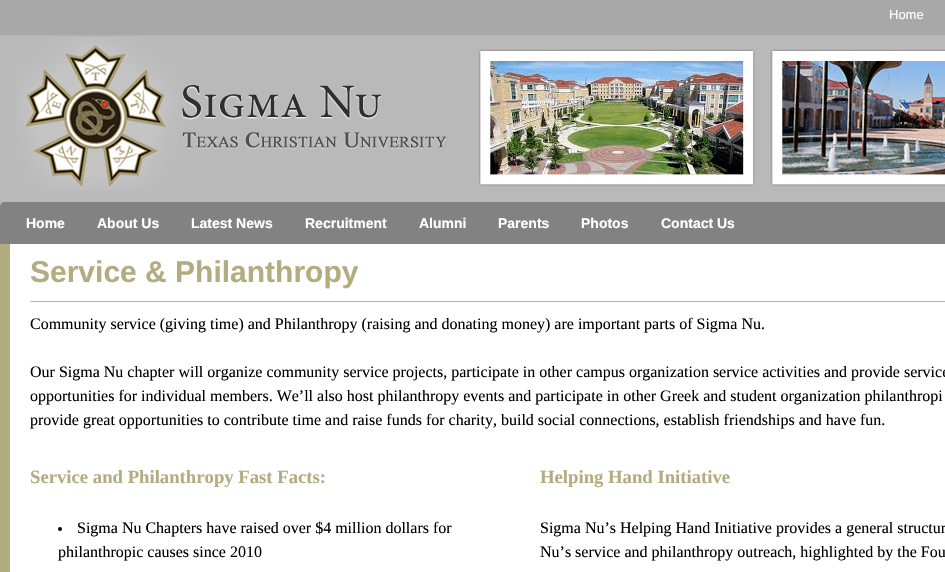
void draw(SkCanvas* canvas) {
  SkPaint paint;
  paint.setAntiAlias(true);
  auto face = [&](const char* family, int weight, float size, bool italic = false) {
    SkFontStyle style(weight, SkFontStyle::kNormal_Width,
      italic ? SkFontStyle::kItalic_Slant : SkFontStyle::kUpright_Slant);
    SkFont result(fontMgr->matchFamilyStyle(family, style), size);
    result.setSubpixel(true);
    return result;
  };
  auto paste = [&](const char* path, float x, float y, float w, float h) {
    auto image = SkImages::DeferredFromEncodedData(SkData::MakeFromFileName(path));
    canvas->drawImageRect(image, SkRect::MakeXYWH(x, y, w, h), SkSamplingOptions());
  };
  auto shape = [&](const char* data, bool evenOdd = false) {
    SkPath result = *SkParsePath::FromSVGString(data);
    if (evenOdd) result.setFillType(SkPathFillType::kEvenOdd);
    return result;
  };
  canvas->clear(0xffffffff);
  paste("img/1.png", 0, 0, 945, 207);
  paste("img/2.png", 16, 37, 929, 154);
  paint.setColor(0xff828282);
  canvas->drawPath(shape("M5 202H945C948 202 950 204 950 207V244H0V207C0 204 2 202 5 202Z"), paint);
  paint.setColor(0xffb3ac81);
  canvas->drawRect(SkRect::MakeXYWH(0, 244, 10, 328), paint);
  paint.setColor(0xffadb3cb);
  canvas->drawRect(SkRect::MakeXYWH(30, 301, 915, 1), paint);
  paint.setColor(0xff000000);
  canvas->drawCircle(60, 529, 2, paint);
  auto f0 = face("Liberation Sans", 400, 13);
  paint.setColor(0xffffffff);
  canvas->drawString("Home", 889, 19, f0, paint);
  auto f1 = face("Liberation Sans", 700, 14);
  {
    const struct { const char* s; float x, y; } items[] = {
      {"Home", 26, 228},
      {"About Us", 97, 228},
      {"Latest News", 191, 228},
      {"Recruitment", 305, 228},
      {"Alumni", 419, 228},
      {"Parents", 498, 228},
      {"Photos", 581, 228},
      {"Contact Us", 661, 228},
    };
    for (auto [s, x, y] : items) {
      canvas->drawString(s, x, y, f1, paint);
    }
  }
  auto f2 = face("Liberation Sans", 700, 30);
  paint.setColor(0xffb3ac81);
  canvas->drawString("Service & Philanthropy", 30, 282, f2, paint);
  auto f3 = face("Liberation Serif", 400, 16);
  paint.setColor(0xff000000);
  {
    const struct { const char* s; float x, y; } items[] = {
      {"Community service (giving time) and Philanthropy (raising and donating money) are important parts of Sigma Nu.", 30, 329},
      {"Our Sigma Nu chapter will organize community service projects, participate in other campus organization service activities and provide service", 30, 377},
      {"opportunities for individual members. We’ll also host philanthropy events and participate in other Greek and student organization philanthropi", 30, 401},
      {"provide great opportunities to contribute time and raise funds for charity, build social connections, establish friendships and have fun.", 30, 425},
    };
    for (auto [s, x, y] : items) {
      canvas->drawString(s, x, y, f3, paint);
    }
  }
  auto f4 = face("Liberation Serif", 700, 18.7f);
  paint.setColor(0xffb3ac81);
  canvas->drawString("Service and Philanthropy Fast Facts:", 30, 483, f4, paint);
  paint.setColor(0xff000000);
  canvas->drawString("Sigma Nu Chapters have raised over $4 million dollars for", 77, 533, f3, paint);
  canvas->drawString("philanthropic causes since 2010", 58, 557, f3, paint);
  paint.setColor(0xffb3ac81);
  canvas->drawString("Helping Hand Initiative", 540, 483, f4, paint);
  paint.setColor(0xff000000);
  canvas->drawString("Sigma Nu’s Helping Hand Initiative provides a general structur", 540, 533, f3, paint);
  canvas->drawString("Nu’s service and philanthropy outreach, highlighted by the Fou", 540, 557, f3, paint);
}
